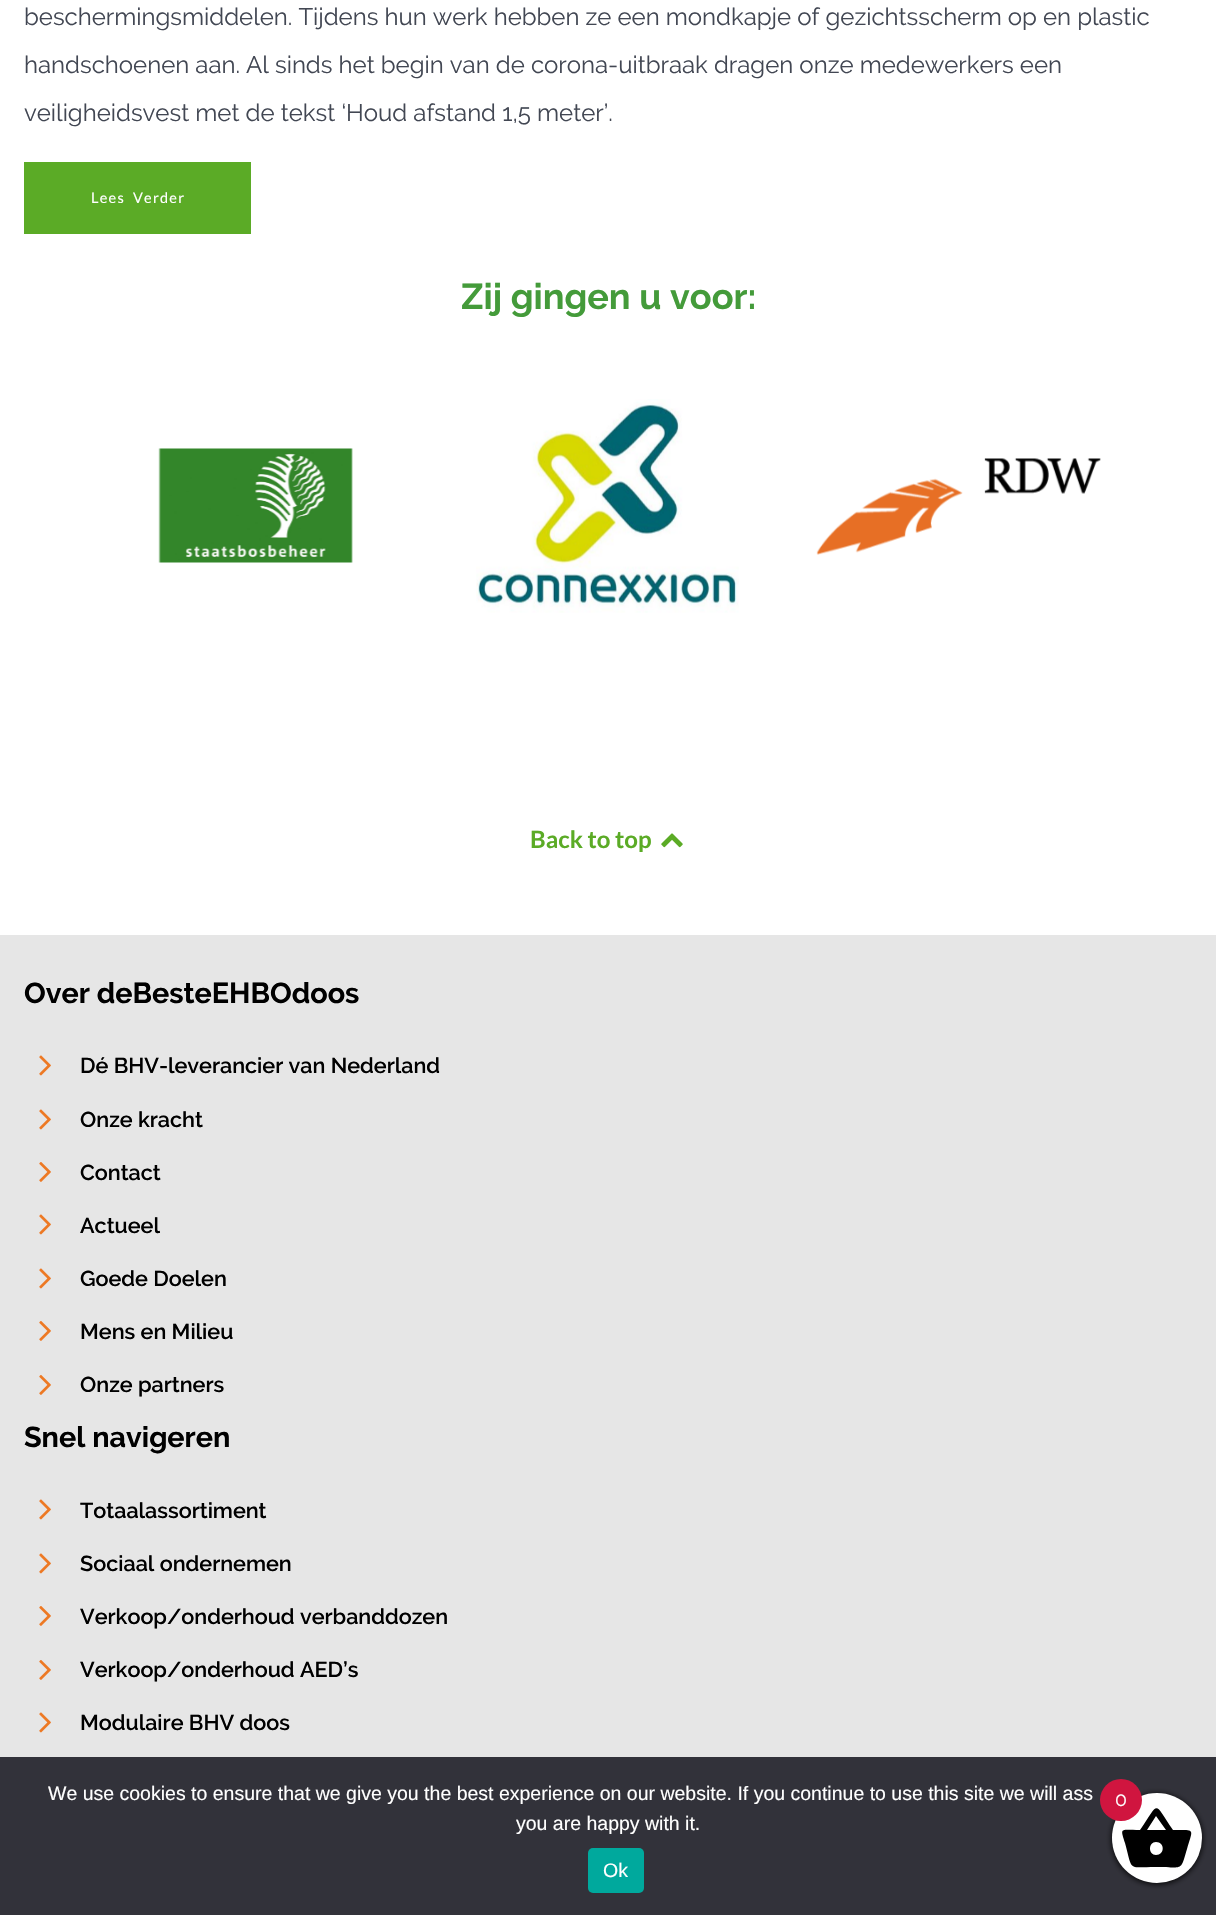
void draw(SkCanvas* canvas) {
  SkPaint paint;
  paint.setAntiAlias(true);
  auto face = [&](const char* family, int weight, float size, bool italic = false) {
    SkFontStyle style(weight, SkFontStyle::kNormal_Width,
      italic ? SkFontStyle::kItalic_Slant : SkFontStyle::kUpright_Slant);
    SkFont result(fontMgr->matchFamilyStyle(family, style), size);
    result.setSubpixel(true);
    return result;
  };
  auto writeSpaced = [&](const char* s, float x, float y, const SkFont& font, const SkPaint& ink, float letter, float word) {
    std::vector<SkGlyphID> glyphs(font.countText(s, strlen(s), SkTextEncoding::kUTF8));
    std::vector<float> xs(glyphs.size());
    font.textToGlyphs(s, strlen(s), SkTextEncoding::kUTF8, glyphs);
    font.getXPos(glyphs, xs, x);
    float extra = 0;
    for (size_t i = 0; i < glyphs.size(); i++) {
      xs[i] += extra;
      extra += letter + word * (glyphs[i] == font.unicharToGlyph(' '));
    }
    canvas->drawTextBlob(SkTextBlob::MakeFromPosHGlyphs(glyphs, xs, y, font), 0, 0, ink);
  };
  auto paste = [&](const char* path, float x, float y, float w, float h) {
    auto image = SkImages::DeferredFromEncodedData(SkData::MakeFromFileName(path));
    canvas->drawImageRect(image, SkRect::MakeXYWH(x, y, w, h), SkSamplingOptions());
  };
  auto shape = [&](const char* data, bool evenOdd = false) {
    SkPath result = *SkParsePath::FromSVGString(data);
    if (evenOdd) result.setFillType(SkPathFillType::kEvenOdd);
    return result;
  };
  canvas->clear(0xffffffff);
  paint.setColor(0xff5bab26);
  canvas->drawRect(SkRect::MakeXYWH(24, 162, 227, 72), paint);
  paste("img/1.png", 158, 448, 195, 115);
  paste("img/2.png", 476, 399, 263, 214);
  paste("img/3.png", 816, 458, 285, 97);
  paste("img/4.png", 661, 833, 22, 15);
  paint.setColor(0xffe6e6e6);
  canvas->drawRect(SkRect::MakeXYWH(0, 935, 1216, 822), paint);
  paste("img/5.png", 39, 1055, 12, 21);
  paste("img/5.png", 39, 1109, 12, 21);
  paste("img/6.png", 39, 1162, 12, 20);
  paste("img/5.png", 39, 1214, 12, 21);
  paste("img/5.png", 39, 1268, 12, 21);
  paste("img/6.png", 39, 1321, 12, 20);
  paste("img/6.png", 39, 1375, 12, 20);
  paste("img/5.png", 39, 1499, 12, 21);
  paste("img/5.png", 39, 1553, 12, 21);
  paste("img/6.png", 39, 1606, 12, 20);
  paste("img/6.png", 39, 1660, 12, 20);
  paste("img/5.png", 39, 1712, 12, 21);
  paint.setColor(0xff32323a);
  canvas->drawRect(SkRect::MakeXYWH(0, 1757, 1216, 158), paint);
  paint.setColor(0xff00a99d);
  canvas->drawRoundRect(SkRect::MakeXYWH(588, 1848, 56, 45), 5, 5, paint);
  paint.setColor(0xff000000);
  paint.setMaskFilter(SkMaskFilter::MakeBlur(kNormal_SkBlurStyle, 3));
  canvas->drawRoundRect(SkRect::MakeXYWH(1112, 1794, 90, 90), 45, 45, paint);
  paint.setMaskFilter(nullptr);
  paint.setColor(0xffffffff);
  canvas->drawCircle(1157, 1838, 45, paint);
  paint.setColor(0xff000000);
  canvas->drawPath(shape("M1156 1855C1165 1855 1165 1842 1156 1842C1148 1842 1148 1855 1156 1855ZM1147 1830H1166L1156 1816ZM1173 1830C1196 1830 1193 1828 1187 1849C1180 1872 1184 1867 1156 1867C1127 1867 1133 1872 1125 1843C1120 1827 1120 1830 1140 1830C1160 1801 1153 1801 1173 1830Z"), paint);
  paint.setColor(0xffd0153f);
  canvas->drawCircle(1121, 1800, 21, paint);
  auto f0 = face("Raleway", 400, 24);
  paint.setColor(0xff424753);
  {
    const struct { const char* s; float x, y; } items[] = {
      {"beschermingsmiddelen. Tijdens hun werk hebben ze een mondkapje of gezichtsscherm op en plastic", 24, 25},
      {"handschoenen aan. Al sinds het begin van de corona-uitbraak dragen onze medewerkers een", 24, 73},
      {"veiligheidsvest met de tekst ‘Houd afstand 1,5 meter’.", 24, 121},
    };
    for (auto [s, x, y] : items) {
      canvas->drawString(s, x, y, f0, paint);
    }
  }
  auto f1 = face("Lato", 400, 14.5f);
  paint.setColor(0xffffffff);
  writeSpaced("Lees Verder", 91, 203, f1, paint, 1.25f, 4);
  auto f2 = face("Raleway", 700, 36);
  paint.setColor(0xff449b3a);
  canvas->drawString("Zij gingen u voor:", 461, 309, f2, paint);
  auto f3 = face("Lato", 700, 24);
  paint.setColor(0xff5bab26);
  canvas->drawString("Back to top", 530, 848, f3, paint);
  auto f4 = face("Raleway", 700, 28.75f);
  paint.setColor(0xff000000);
  canvas->drawString("Over deBesteEHBOdoos", 24, 1003, f4, paint);
  auto f5 = face("Raleway", 600, 21.6f);
  {
    const struct { const char* s; float x, y; } items[] = {
      {"Dé BHV-leverancier van Nederland", 80, 1073},
      {"Onze kracht", 80, 1127},
      {"Contact", 80, 1180},
      {"Actueel", 80, 1233},
      {"Goede Doelen", 80, 1286},
      {"Mens en Milieu", 80, 1339},
      {"Onze partners", 80, 1392},
    };
    for (auto [s, x, y] : items) {
      canvas->drawString(s, x, y, f5, paint);
    }
  }
  canvas->drawString("Snel navigeren", 24, 1447, f4, paint);
  {
    const struct { const char* s; float x, y; } items[] = {
      {"Totaalassortiment", 80, 1518},
      {"Sociaal ondernemen", 80, 1571},
      {"Verkoop/onderhoud verbanddozen", 80, 1624},
      {"Verkoop/onderhoud AED’s", 80, 1677},
      {"Modulaire BHV doos", 80, 1730},
    };
    for (auto [s, x, y] : items) {
      canvas->drawString(s, x, y, f5, paint);
    }
  }
  auto f6 = face("Liberation Sans", 400, 19.5f);
  paint.setColor(0xffffffff);
  {
    const struct { const char* s; float x, y; } items[] = {
      {"We use cookies to ensure that we give you the best experience on our website. If you continue to use this site we will ass", 48, 1800},
      {"you are happy with it.", 516, 1830},
      {"Ok", 603, 1877},
    };
    for (auto [s, x, y] : items) {
      canvas->drawString(s, x, y, f6, paint);
    }
  }
  auto f7 = face("Raleway", 400, 19.5f);
  canvas->drawString("0", 1115, 1806, f7, paint);
}
